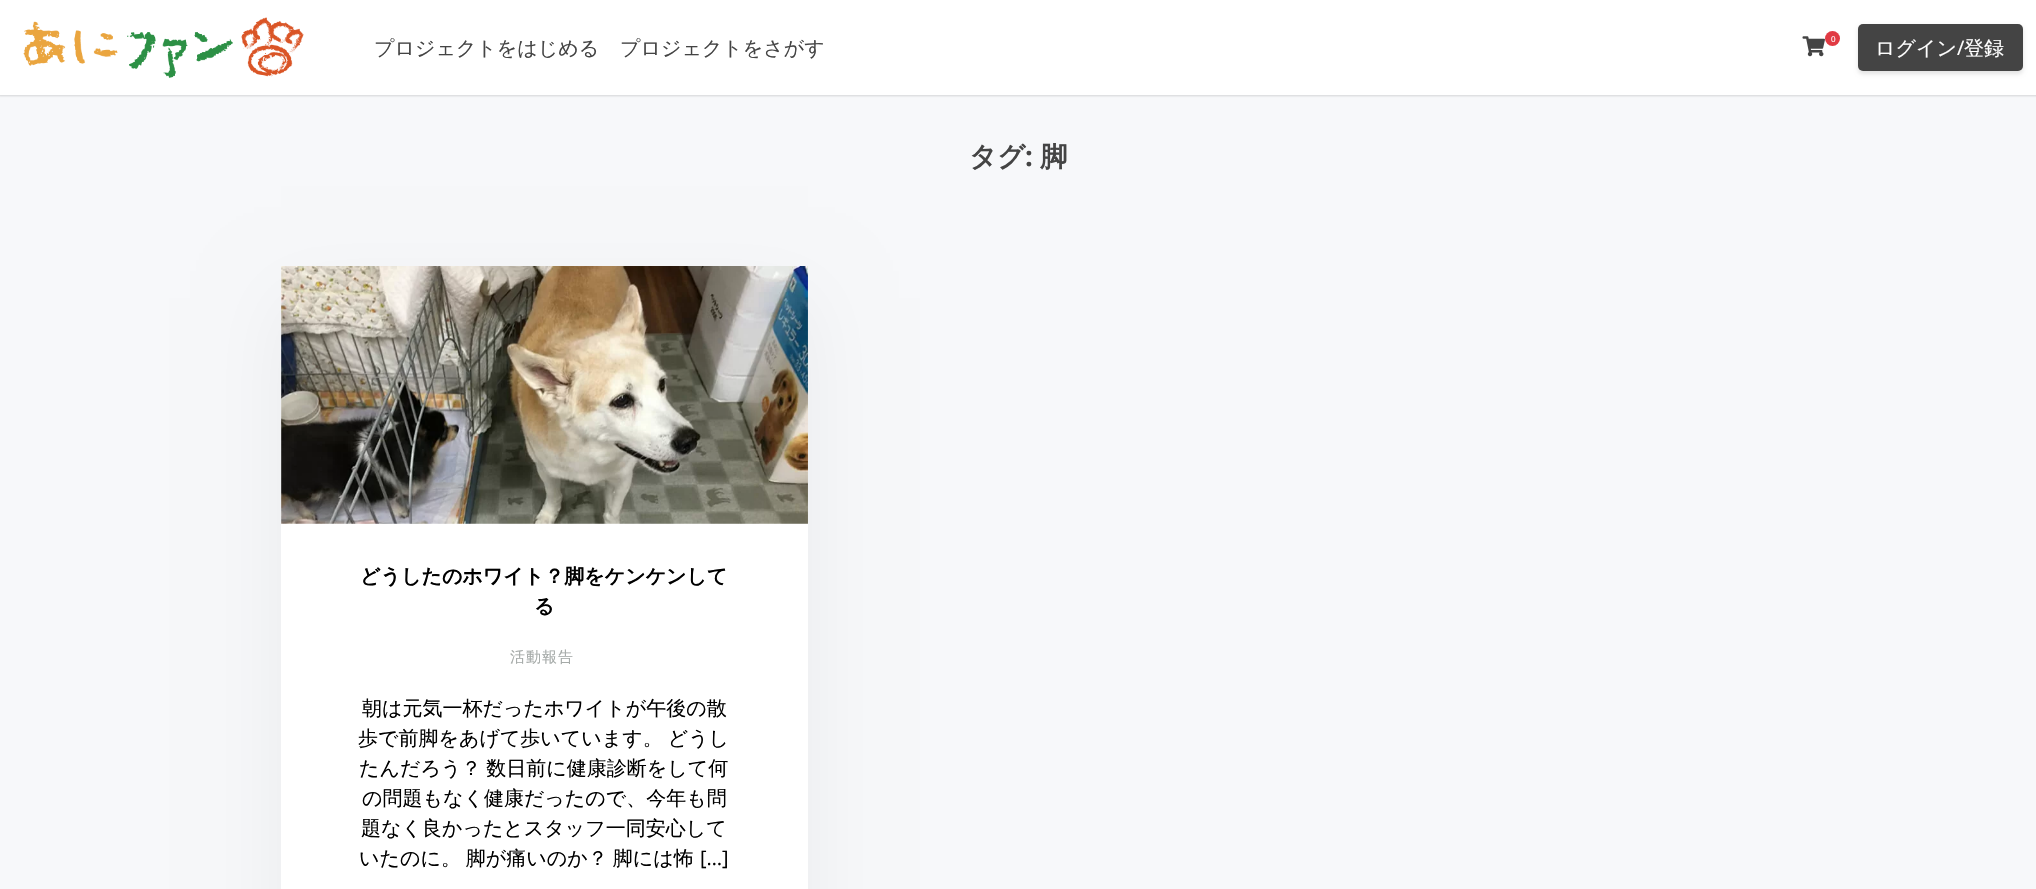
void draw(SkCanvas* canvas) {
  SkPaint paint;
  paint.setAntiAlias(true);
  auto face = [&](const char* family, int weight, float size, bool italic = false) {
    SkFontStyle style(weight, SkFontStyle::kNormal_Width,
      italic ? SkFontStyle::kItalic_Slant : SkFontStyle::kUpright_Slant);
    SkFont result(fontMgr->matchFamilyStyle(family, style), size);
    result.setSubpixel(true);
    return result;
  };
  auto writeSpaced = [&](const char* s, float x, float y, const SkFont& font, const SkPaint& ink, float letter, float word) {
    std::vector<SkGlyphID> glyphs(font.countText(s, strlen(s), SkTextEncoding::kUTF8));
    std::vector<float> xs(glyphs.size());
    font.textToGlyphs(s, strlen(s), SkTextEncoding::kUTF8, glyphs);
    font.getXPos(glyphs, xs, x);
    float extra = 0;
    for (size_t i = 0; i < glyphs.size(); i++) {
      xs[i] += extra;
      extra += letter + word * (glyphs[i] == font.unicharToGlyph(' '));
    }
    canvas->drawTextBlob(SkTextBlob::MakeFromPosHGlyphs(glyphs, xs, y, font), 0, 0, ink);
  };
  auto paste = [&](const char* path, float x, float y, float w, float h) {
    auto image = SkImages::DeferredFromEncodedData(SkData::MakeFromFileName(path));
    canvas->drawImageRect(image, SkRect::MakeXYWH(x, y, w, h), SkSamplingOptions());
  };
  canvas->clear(0xfff7f8fa);
  paint.setColor(0x26060808);
  paint.setMaskFilter(SkMaskFilter::MakeBlur(kNormal_SkBlurStyle, 1));
  canvas->drawRect(SkRect::MakeXYWH(-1, -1, 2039, 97), paint);
  paint.setMaskFilter(nullptr);
  paint.setColor(0xffffffff);
  canvas->drawRect(SkRect::MakeXYWH(0, 0, 2036, 95), paint);
  paste("img/1.png", 23, 17, 281, 61);
  paste("img/2.png", 1802, 36, 23, 21);
  paint.setColor(0xffe13a43);
  canvas->drawCircle(1832.5f, 38.5f, 7.5f, paint);
  paint.setColor(0x1c000000);
  paint.setMaskFilter(SkMaskFilter::MakeBlur(kNormal_SkBlurStyle, 2));
  canvas->drawRoundRect(SkRect::MakeXYWH(1858, 26, 165, 48), 5, 5, paint);
  paint.setMaskFilter(nullptr);
  paint.setColor(0xff444444);
  canvas->drawRoundRect(SkRect::MakeXYWH(1858, 24, 165, 47), 5, 5, paint);
  paint.setColor(0x0d000000);
  paint.setMaskFilter(SkMaskFilter::MakeBlur(kNormal_SkBlurStyle, 37.5f));
  canvas->drawRect(SkRect::MakeXYWH(281, 298, 527, 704), paint);
  paint.setMaskFilter(nullptr);
  paint.setColor(0xffffffff);
  canvas->drawRect(SkRect::MakeXYWH(281, 266, 527, 623), paint);
  paste("img/3.png", 281, 266, 527, 258);
  auto f0 = face("WenQuanYi Zen Hei", 500, 20);
  paint.setColor(0xff444444);
  canvas->drawString("プロジェクトをはじめる", 374, 55, f0, paint);
  canvas->drawString("プロジェクトをさがす", 620, 55, f0, paint);
  auto f1 = face("Open Sans", 400, 8);
  paint.setColor(0xffffffff);
  canvas->drawString("0", 1831, 42, f1, paint);
  canvas->drawString("ログイン", 1875, 55, f0, paint);
  auto f2 = face("Open Sans", 400, 20);
  canvas->drawString("/", 1957, 55, f2, paint);
  canvas->drawString("登録", 1964, 55, f0, paint);
  auto f3 = face("WenQuanYi Zen Hei", 700, 27.5f);
  paint.setColor(0xff444444);
  canvas->drawString("タグ", 969, 166, f3, paint);
  auto f4 = face("Open Sans", 700, 27.5f);
  canvas->drawString(":", 1025, 166, f4, paint);
  canvas->drawString("脚", 1040, 166, f3, paint);
  auto f5 = face("WenQuanYi Zen Hei", 700, 20);
  paint.setColor(0xff000000);
  canvas->drawString("どうしたのホワイト？脚をケンケンして", 360, 583, f5, paint);
  canvas->drawString("る", 534, 613, f5, paint);
  auto f6 = face("WenQuanYi Zen Hei", 500, 15);
  paint.setColor(0xffa5aaa8);
  writeSpaced("活動報告", 510, 662, f6, paint, 1, 0);
  paint.setColor(0xff000000);
  canvas->drawString("朝は元気一杯だったホワイトが午後の散", 362, 715, f0, paint);
  writeSpaced("歩で前脚をあげて歩いています。 どうし", 358, 745, f0, paint, 0, -1);
  writeSpaced("たんだろう？ 数日前に健康診断をして何", 359, 775, f0, paint, 0, -1);
  canvas->drawString("の問題もなく健康だったので、今年も問", 362, 805, f0, paint);
  canvas->drawString("題なく良かったとスタッフ一同安心して", 361, 835, f0, paint);
  writeSpaced("いたのに。 脚が痛いのか？ 脚には怖", 359, 865, f0, paint, 0, -1);
  canvas->drawString("[…]", 700, 865, f2, paint);
}
